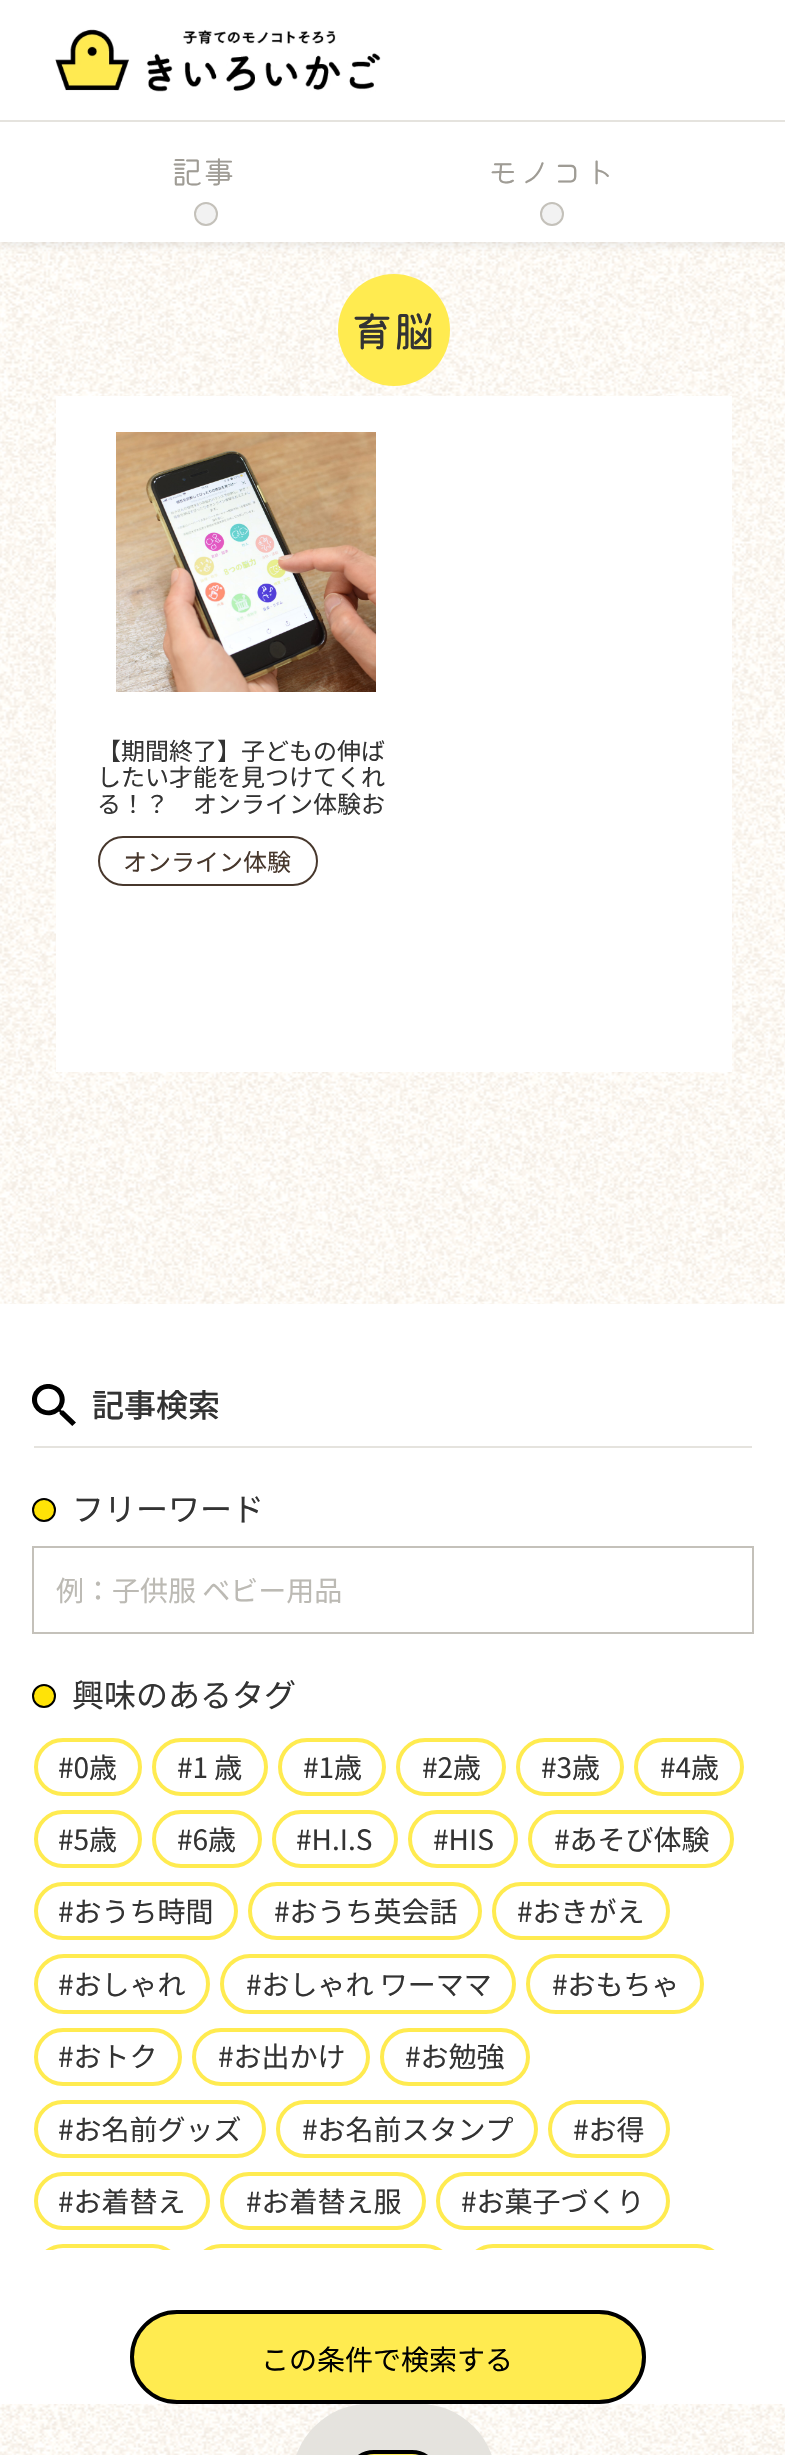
void draw(SkCanvas* canvas) {
  SkPaint paint;
  paint.setAntiAlias(true);
  auto face = [&](const char* family, int weight, float size, bool italic = false) {
    SkFontStyle style(weight, SkFontStyle::kNormal_Width,
      italic ? SkFontStyle::kItalic_Slant : SkFontStyle::kUpright_Slant);
    SkFont result(fontMgr->matchFamilyStyle(family, style), size);
    result.setSubpixel(true);
    return result;
  };
  auto paste = [&](const char* path, float x, float y, float w, float h) {
    auto image = SkImages::DeferredFromEncodedData(SkData::MakeFromFileName(path));
    canvas->drawImageRect(image, SkRect::MakeXYWH(x, y, w, h), SkSamplingOptions());
  };
  canvas->clear(0xffffffff);
  paste("img/1.png", 0, 242, 785, 2213);
  paint.setColor(0x29656565);
  paint.setMaskFilter(SkMaskFilter::MakeBlur(kNormal_SkBlurStyle, 5));
  canvas->drawRect(SkRect::MakeXYWH(0, 2, 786, 242), paint);
  paint.setMaskFilter(nullptr);
  paint.setColor(0xffffffff);
  canvas->drawRect(SkRect::MakeXYWH(0, 0, 785, 242), paint);
  paint.setColor(0xffe5e3de);
  canvas->drawRect(SkRect::MakeXYWH(0, 120, 785, 2), paint);
  paste("img/2.png", 55, 29, 326, 63);
  paint.setColor(0xfff2f2f2);
  canvas->drawCircle(206, 214, 11, paint);
  paint.setStroke(true);
  paint.setStrokeWidth(2);
  paint.setColor(0xffc4c1ba);
  canvas->drawCircle(206, 214, 11, paint);
  paint.setStroke(false);
  paint.setColor(0xfff2f2f2);
  canvas->drawCircle(552, 214, 11, paint);
  paint.setStroke(true);
  paint.setColor(0xffc4c1ba);
  canvas->drawCircle(552, 214, 11, paint);
  paint.setStroke(false);
  paint.setColor(0xffffeb50);
  canvas->drawCircle(394, 330, 56, paint);
  paint.setColor(0xffffffff);
  canvas->drawRect(SkRect::MakeXYWH(56, 396, 676, 676), paint);
  paste("img/3.png", 116, 432, 260, 260);
  paint.setStroke(true);
  paint.setColor(0xff47372c);
  canvas->drawRoundRect(SkRect::MakeXYWH(99, 837, 218, 48), 24, 24, paint);
  paint.setStroke(false);
  paint.setColor(0xffffffff);
  canvas->drawRect(SkRect::MakeXYWH(0, 1304, 785, 1100), paint);
  paint.setColor(0xffe5e3de);
  canvas->drawRect(SkRect::MakeXYWH(34, 1446, 718, 2), paint);
  paste("img/4.png", 32, 1384, 44, 42);
  paint.setColor(0xffffe307);
  canvas->drawCircle(44, 1510, 11, paint);
  paint.setStroke(true);
  paint.setColor(0xff000000);
  canvas->drawCircle(44, 1510, 11, paint);
  paint.setColor(0xffc4c1ba);
  canvas->drawRect(SkRect::MakeXYWH(33, 1547, 720, 86), paint);
  paint.setStroke(false);
  paint.setColor(0xffffe307);
  canvas->drawCircle(44, 1696, 11, paint);
  paint.setStroke(true);
  paint.setColor(0xff000000);
  canvas->drawCircle(44, 1696, 11, paint);
  paint.setStrokeWidth(4);
  paint.setColor(0xffffeb50);
  canvas->drawRoundRect(SkRect::MakeXYWH(36, 1740, 104, 54), 27, 27, paint);
  canvas->drawRoundRect(SkRect::MakeXYWH(154, 1740, 112, 54), 27, 27, paint);
  canvas->drawRoundRect(SkRect::MakeXYWH(280, 1740, 104, 54), 27, 27, paint);
  canvas->drawRoundRect(SkRect::MakeXYWH(398, 1740, 106, 54), 27, 27, paint);
  canvas->drawRoundRect(SkRect::MakeXYWH(518, 1740, 104, 54), 27, 27, paint);
  canvas->drawRoundRect(SkRect::MakeXYWH(636, 1740, 106, 54), 27, 27, paint);
  canvas->drawRoundRect(SkRect::MakeXYWH(36, 1812, 104, 54), 27, 27, paint);
  canvas->drawRoundRect(SkRect::MakeXYWH(154, 1812, 106, 54), 27, 27, paint);
  canvas->drawRoundRect(SkRect::MakeXYWH(274, 1812, 122, 54), 27, 27, paint);
  canvas->drawRoundRect(SkRect::MakeXYWH(410, 1812, 106, 54), 27, 27, paint);
  canvas->drawRoundRect(SkRect::MakeXYWH(530, 1812, 202, 54), 27, 27, paint);
  canvas->drawRoundRect(SkRect::MakeXYWH(36, 1884, 200, 54), 27, 27, paint);
  canvas->drawRoundRect(SkRect::MakeXYWH(250, 1884, 230, 54), 27, 27, paint);
  canvas->drawRoundRect(SkRect::MakeXYWH(494, 1884, 174, 54), 27, 27, paint);
  canvas->drawRoundRect(SkRect::MakeXYWH(36, 1956, 172, 56), 28, 28, paint);
  canvas->drawRoundRect(SkRect::MakeXYWH(222, 1956, 292, 56), 28, 28, paint);
  canvas->drawRoundRect(SkRect::MakeXYWH(528, 1956, 174, 56), 28, 28, paint);
  canvas->drawRoundRect(SkRect::MakeXYWH(36, 2030, 144, 54), 27, 27, paint);
  canvas->drawRoundRect(SkRect::MakeXYWH(194, 2030, 174, 54), 27, 27, paint);
  canvas->drawRoundRect(SkRect::MakeXYWH(382, 2030, 146, 54), 27, 27, paint);
  canvas->drawRoundRect(SkRect::MakeXYWH(36, 2102, 228, 54), 27, 27, paint);
  canvas->drawRoundRect(SkRect::MakeXYWH(278, 2102, 258, 54), 27, 27, paint);
  canvas->drawRoundRect(SkRect::MakeXYWH(550, 2102, 118, 54), 27, 27, paint);
  canvas->drawRoundRect(SkRect::MakeXYWH(36, 2174, 172, 54), 27, 27, paint);
  canvas->drawRoundRect(SkRect::MakeXYWH(222, 2174, 202, 54), 27, 27, paint);
  canvas->drawRoundRect(SkRect::MakeXYWH(438, 2174, 230, 54), 27, 27, paint);
  canvas->save();
  canvas->clipRect(SkRect::MakeXYWH(32, 1730, 722, 520));
  canvas->drawRoundRect(SkRect::MakeXYWH(36, 2246, 144, 54), 27, 27, paint);
  canvas->drawRoundRect(SkRect::MakeXYWH(194, 2246, 258, 54), 27, 27, paint);
  canvas->drawRoundRect(SkRect::MakeXYWH(466, 2246, 258, 54), 27, 27, paint);
  canvas->restore();
  paint.setStroke(false);
  canvas->drawRoundRect(SkRect::MakeXYWH(132, 2312, 512, 90), 45, 45, paint);
  paint.setStroke(true);
  paint.setColor(0xff000000);
  canvas->drawRoundRect(SkRect::MakeXYWH(132, 2312, 512, 90), 45, 45, paint);
  paint.setStroke(false);
  paint.setColor(0xffe5e3de);
  canvas->drawRoundRect(SkRect::MakeXYWH(292, 2404, 204, 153), 102, 102, paint);
  paint.setColor(0xffffeb50);
  canvas->drawRoundRect(SkRect::MakeXYWH(348, 2452, 90, 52), 45, 45, paint);
  paint.setStroke(true);
  paint.setColor(0xff000000);
  canvas->drawRoundRect(SkRect::MakeXYWH(348, 2452, 90, 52), 45, 45, paint);
  auto f0 = face("Kiwi Maru", 300, 32);
  paint.setStroke(false);
  paint.setColor(0xff9f9c95);
  canvas->drawString("記事", 171, 184, f0, paint);
  canvas->drawString("モノコト", 487, 184, f0, paint);
  auto f1 = face("Kiwi Maru", 400, 42);
  paint.setColor(0xff333333);
  canvas->drawString("育脳", 351, 347, f1, paint);
  auto f2 = face("Noto Sans JP", 400, 24);
  {
    const struct { const char* s; float x, y; } items[] = {
      {"【期間終了】子どもの伸ば", 97, 760},
      {"したい才能を見つけてくれ", 97, 786},
      {"る！？　オンライン体験お", 97, 813},
    };
    for (auto [s, x, y] : items) {
      canvas->drawString(s, x, y, f2, paint);
    }
  }
  paint.setColor(0xff47372c);
  canvas->drawString("オンライン体験", 123, 871, f2, paint);
  auto f3 = face("Noto Sans JP", 500, 32);
  paint.setColor(0xff333333);
  canvas->drawString("記事検索", 92, 1417, f3, paint);
  auto f4 = face("Noto Sans JP", 400, 32);
  canvas->drawString("フリーワード", 72, 1521, f4, paint);
  auto f5 = face("Noto Sans JP", 400, 28);
  paint.setColor(0xffbcbab4);
  canvas->drawString("例：子供服 ベビー用品", 56, 1601, f5, paint);
  paint.setColor(0xff333333);
  canvas->drawString("興味のあるタグ", 72, 1707, f4, paint);
  {
    const struct { const char* s; float x, y; } items[] = {
      {"#0歳", 58, 1778},
      {"#1 歳", 177, 1778},
      {"#1歳", 303, 1778},
      {"#2歳", 422, 1778},
      {"#3歳", 541, 1778},
      {"#4歳", 660, 1778},
      {"#5歳", 58, 1850},
      {"#6歳", 177, 1850},
      {"#H.I.S", 296, 1850},
      {"#HIS", 433, 1850},
      {"#あそび体験", 554, 1850},
      {"#おうち時間", 58, 1922},
      {"#おうち英会話", 274, 1922},
      {"#おきがえ", 517, 1922},
      {"#おしゃれ", 58, 1995},
      {"#おしゃれ ワーママ", 246, 1995},
      {"#おもちゃ", 552, 1995},
      {"#おトク", 58, 2067},
      {"#お出かけ", 218, 2067},
      {"#お勉強", 405, 2067},
      {"#お名前グッズ", 58, 2140},
      {"#お名前スタンプ", 302, 2140},
      {"#お得", 573, 2140},
      {"#お着替え", 58, 2212},
      {"#お着替え服", 246, 2212},
      {"#お菓子づくり", 461, 2212},
    };
    for (auto [s, x, y] : items) {
      canvas->drawString(s, x, y, f5, paint);
    }
  }
  paint.setColor(0xff000000);
  canvas->drawString("この条件で検索する", 261, 2370, f5, paint);
}
